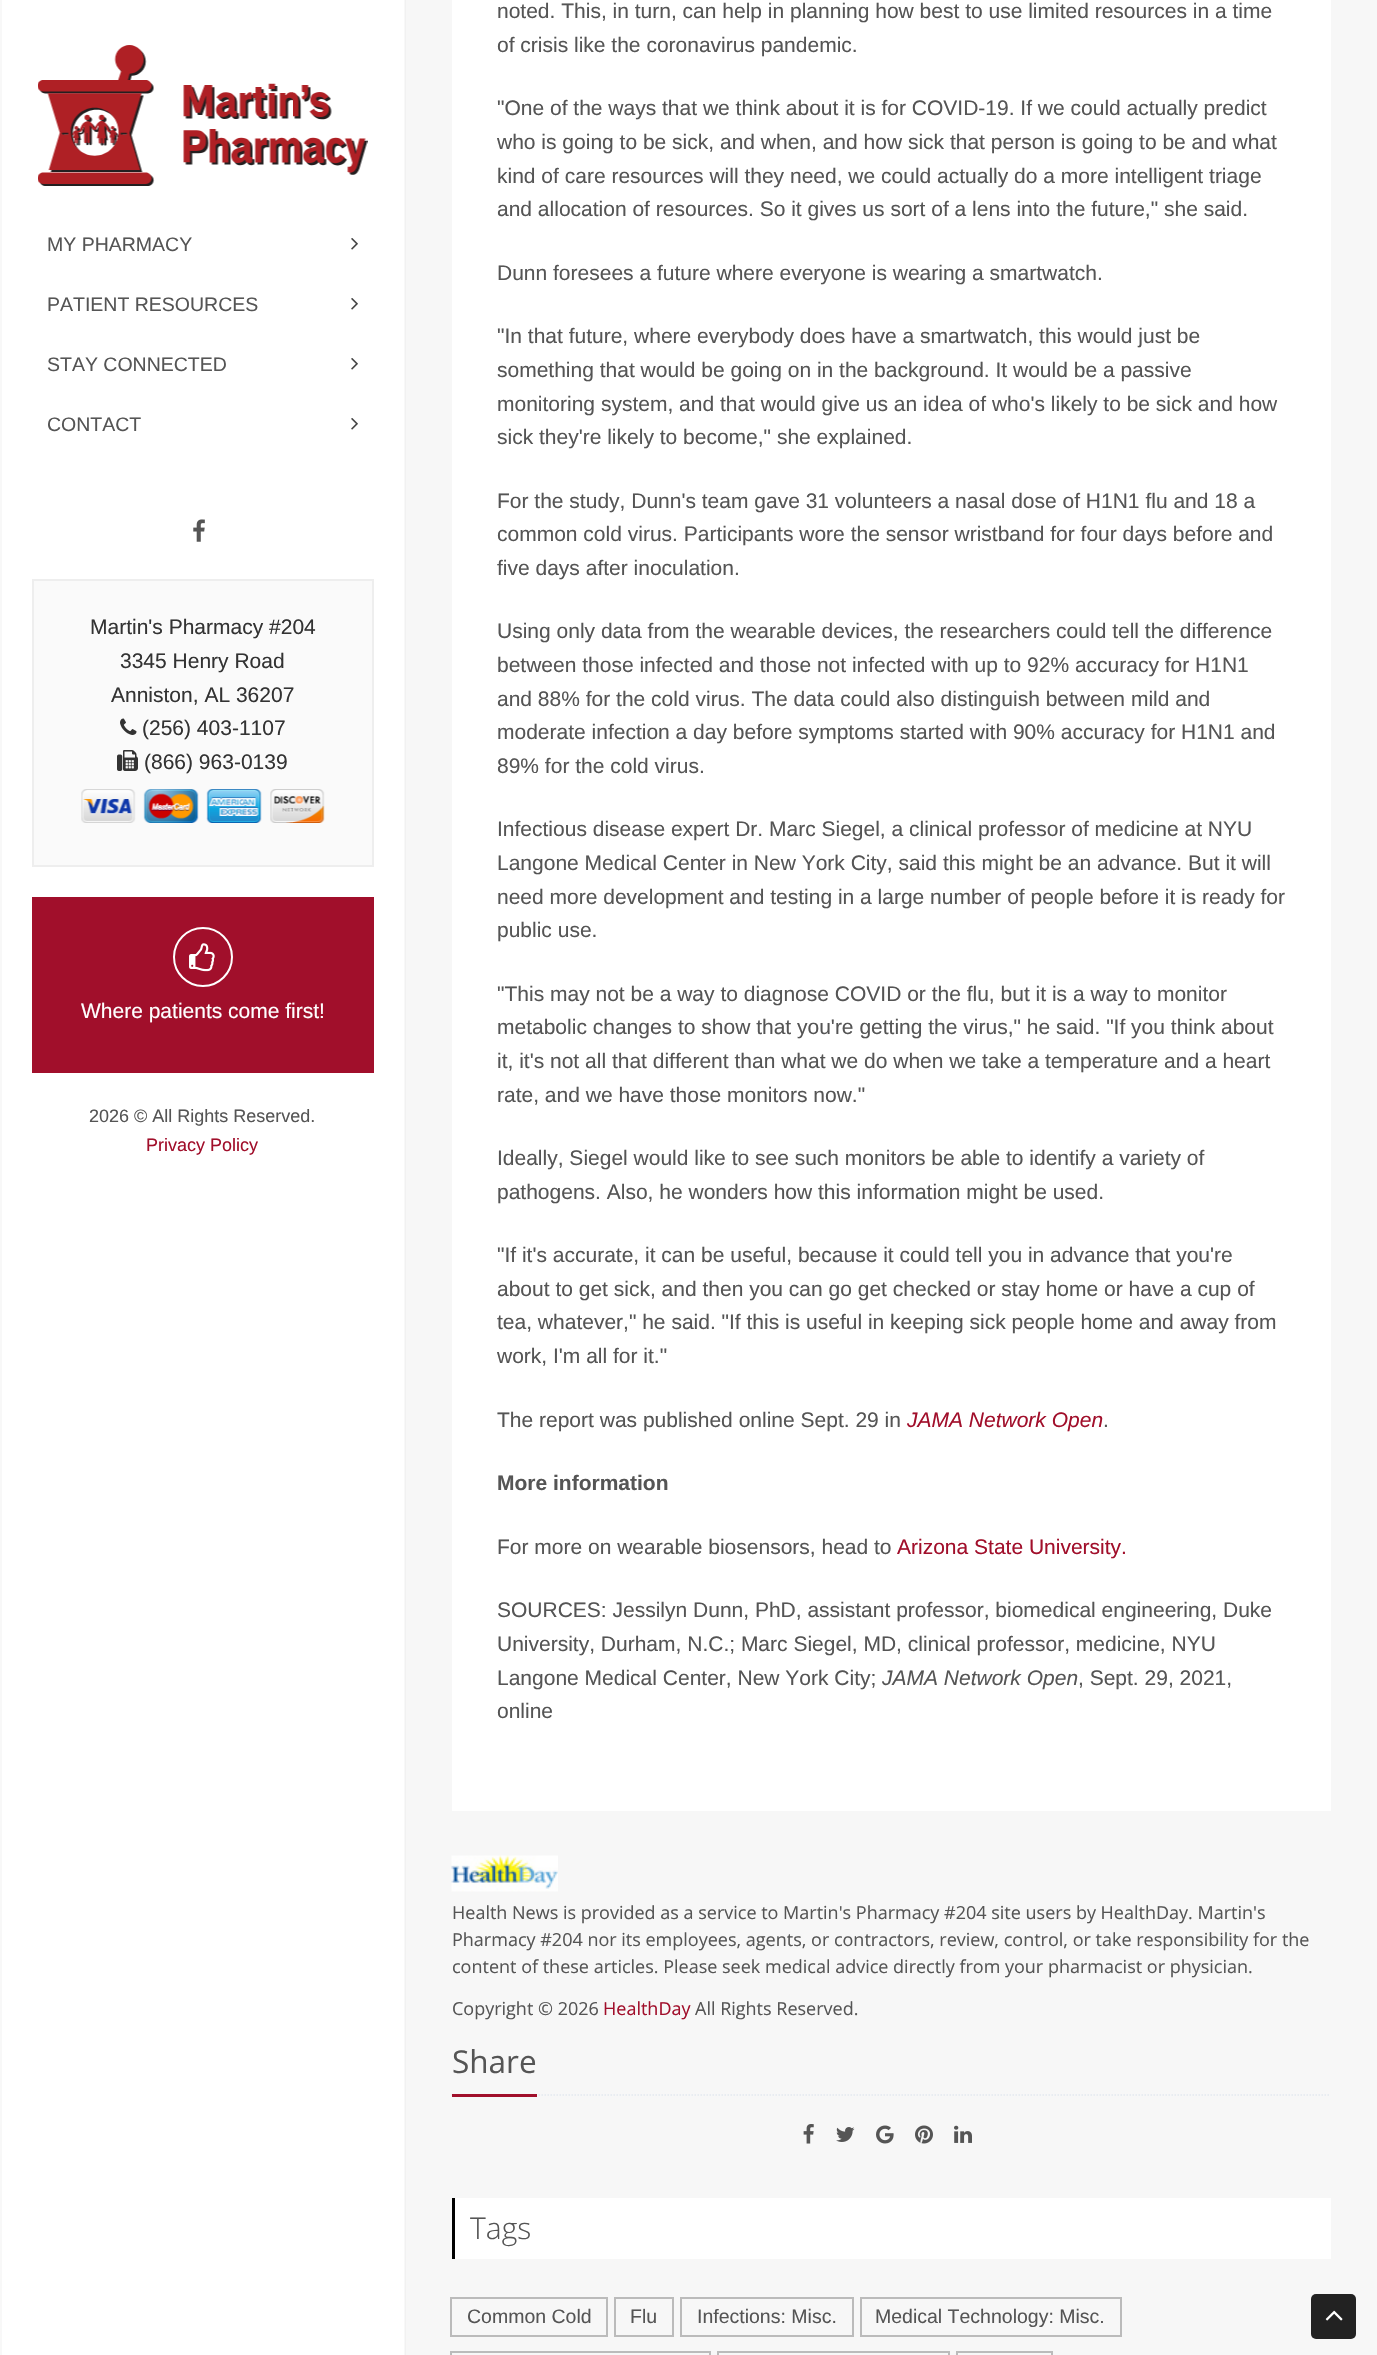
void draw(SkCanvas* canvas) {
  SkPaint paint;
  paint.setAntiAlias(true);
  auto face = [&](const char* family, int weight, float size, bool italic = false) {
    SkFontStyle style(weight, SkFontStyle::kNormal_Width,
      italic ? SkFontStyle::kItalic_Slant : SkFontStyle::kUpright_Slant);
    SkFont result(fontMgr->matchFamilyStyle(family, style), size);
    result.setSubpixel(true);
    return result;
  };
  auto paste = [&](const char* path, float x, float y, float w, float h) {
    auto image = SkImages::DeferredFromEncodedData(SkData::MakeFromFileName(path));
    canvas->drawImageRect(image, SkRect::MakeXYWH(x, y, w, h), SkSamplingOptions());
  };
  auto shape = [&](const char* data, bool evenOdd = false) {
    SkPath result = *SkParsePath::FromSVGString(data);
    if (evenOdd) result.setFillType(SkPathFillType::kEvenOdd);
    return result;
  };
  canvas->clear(0xffffffff);
  paint.setColor(0xfff8f8f8);
  canvas->drawRect(SkRect::MakeXYWH(404, 0, 1, 2355), paint);
  canvas->drawRect(SkRect::MakeXYWH(0, 0, 2, 2355), paint);
  paste("img/1.png", 38, 45, 330, 141);
  paste("img/2.png", 351, 238, 7, 12);
  paste("img/2.png", 351, 298, 7, 12);
  paste("img/2.png", 351, 358, 7, 12);
  paste("img/2.png", 351, 418, 7, 12);
  paste("img/3.png", 193, 519, 12, 23);
  paint.setColor(0xfffafafa);
  canvas->drawRect(SkRect::MakeXYWH(33, 580, 340, 286), paint);
  paint.setStroke(true);
  paint.setStrokeWidth(2);
  paint.setColor(0xffeeeeee);
  canvas->drawRect(SkRect::MakeXYWH(33, 580, 340, 286), paint);
  paste("img/4.png", 120, 718, 17, 17);
  paste("img/5.png", 117, 750, 21, 21);
  paste("img/6.png", 81, 789, 55, 34);
  paste("img/7.png", 143, 789, 56, 34);
  paste("img/8.png", 206, 789, 56, 34);
  paste("img/9.png", 270, 789, 55, 34);
  paint.setStroke(false);
  paint.setColor(0xffa10f2b);
  canvas->drawRect(SkRect::MakeXYWH(32, 897, 342, 176), paint);
  paint.setStroke(true);
  paint.setColor(0xffffffff);
  canvas->drawCircle(203, 957, 29, paint);
  paste("img/10.png", 189, 943, 26, 29);
  paint.setStroke(false);
  {
    const struct { float x, y, w, h; SkColor color; } items[] = {
      {406, 0, 971, 2355, 0xfff7f7f7},
      {405, 0, 1, 2355, 0xfff1f1f1},
      {452, 0, 879, 1811, 0xffffffff},
    };
    for (auto [x, y, w, h, color] : items) {
      paint.setColor(color);
      canvas->drawRect(SkRect::MakeXYWH(x, y, w, h), paint);
    }
  }
  paste("img/11.png", 451, 1855, 107, 37);
  paint.setStroke(true);
  paint.setStrokeWidth(1.5f);
  paint.setColor(0xffe4e9f0);
  paint.setPathEffect(SkDashPathEffect::Make({{1.5f, 1.5f}}, 0));
  canvas->drawPath(shape("M451.5 2095H1330.5"), paint);
  paint.setPathEffect(nullptr);
  paint.setStroke(false);
  paint.setColor(0xffa10f2b);
  canvas->drawRect(SkRect::MakeXYWH(452, 2094, 85, 3), paint);
  paste("img/12.png", 803, 2124, 11, 20);
  paste("img/13.png", 836, 2127, 19, 15);
  paste("img/14.png", 876, 2125, 18, 19);
  paste("img/15.png", 915, 2125, 18, 19);
  paste("img/16.png", 954, 2125, 18, 18);
  paint.setColor(0xffffffff);
  canvas->drawRect(SkRect::MakeXYWH(455, 2198, 876, 61), paint);
  paint.setColor(0xff000000);
  canvas->drawRect(SkRect::MakeXYWH(452, 2198, 3, 61), paint);
  paint.setStroke(true);
  paint.setStrokeWidth(2);
  paint.setColor(0xffbbbbbb);
  canvas->drawRect(SkRect::MakeXYWH(451, 2298, 156, 38), paint);
  canvas->drawRect(SkRect::MakeXYWH(615, 2298, 58, 38), paint);
  canvas->drawRect(SkRect::MakeXYWH(681, 2298, 172, 38), paint);
  canvas->drawRect(SkRect::MakeXYWH(861, 2298, 260, 38), paint);
  canvas->drawRect(SkRect::MakeXYWH(451, 2352, 259, 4), paint);
  canvas->drawRect(SkRect::MakeXYWH(718, 2352, 231, 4), paint);
  canvas->drawRect(SkRect::MakeXYWH(957, 2352, 95, 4), paint);
  paint.setStroke(false);
  paint.setColor(0xff222222);
  canvas->drawRoundRect(SkRect::MakeXYWH(1311, 2294, 45, 45), 5, 5, paint);
  paste("img/17.png", 1325, 2310, 18, 11);
  auto f0 = face("Liberation Sans", 400, 19.5f);
  paint.setColor(0xff555555);
  {
    const struct { const char* s; float x, y; } items[] = {
      {"MY PHARMACY", 47, 251},
      {"PATIENT RESOURCES", 47, 311},
      {"STAY CONNECTED", 47, 371},
      {"CONTACT", 47, 431},
    };
    for (auto [s, x, y] : items) {
      canvas->drawString(s, x, y, f0, paint);
    }
  }
  auto f1 = face("Liberation Sans", 400, 21);
  paint.setColor(0xff333333);
  {
    const struct { const char* s; float x, y; } items[] = {
      {"Martin's Pharmacy #204", 90, 634},
      {"3345 Henry Road", 120, 668},
      {"Anniston, AL 36207", 111, 702},
      {"(256) 403-1107", 142, 735},
      {"(866) 963-0139", 144, 769},
    };
    for (auto [s, x, y] : items) {
      canvas->drawString(s, x, y, f1, paint);
    }
  }
  paint.setColor(0xffffffff);
  canvas->drawString("Where patients come first!", 81, 1018, f1, paint);
  auto f2 = face("Liberation Sans", 400, 18);
  paint.setColor(0xff555555);
  canvas->drawString("2026 © All Rights Reserved.", 89, 1122, f2, paint);
  paint.setColor(0xffa10f2b);
  canvas->drawString("Privacy Policy", 146, 1151, f2, paint);
  paint.setColor(0xff555555);
  {
    const struct { const char* s; float x, y; } items[] = {
      {"noted. This, in turn, can help in planning how best to use limited resources in a time", 497, 18},
      {"of crisis like the coronavirus pandemic.", 497, 52},
      {"\"One of the ways that we think about it is for COVID-19. If we could actually predict", 497, 115},
      {"who is going to be sick, and when, and how sick that person is going to be and what", 497, 149},
      {"kind of care resources will they need, we could actually do a more intelligent triage", 497, 183},
      {"and allocation of resources. So it gives us sort of a lens into the future,\" she said.", 497, 216},
      {"Dunn foresees a future where everyone is wearing a smartwatch.", 497, 280},
      {"\"In that future, where everybody does have a smartwatch, this would just be", 497, 343},
      {"something that would be going on in the background. It would be a passive", 497, 377},
      {"monitoring system, and that would give us an idea of who's likely to be sick and how", 497, 411},
      {"sick they're likely to become,\" she explained.", 497, 444},
      {"For the study, Dunn's team gave 31 volunteers a nasal dose of H1N1 flu and 18 a", 497, 508},
      {"common cold virus. Participants wore the sensor wristband for four days before and", 497, 541},
      {"five days after inoculation.", 497, 575},
      {"Using only data from the wearable devices, the researchers could tell the difference", 497, 638},
      {"between those infected and those not infected with up to 92% accuracy for H1N1", 497, 672},
      {"and 88% for the cold virus. The data could also distinguish between mild and", 497, 706},
      {"moderate infection a day before symptoms started with 90% accuracy for H1N1 and", 497, 739},
      {"89% for the cold virus.", 497, 773},
      {"Infectious disease expert Dr. Marc Siegel, a clinical professor of medicine at NYU", 497, 836},
      {"Langone Medical Center in New York City, said this might be an advance. But it will", 497, 870},
      {"need more development and testing in a large number of people before it is ready for", 497, 904},
      {"public use.", 497, 937},
      {"\"This may not be a way to diagnose COVID or the flu, but it is a way to monitor", 497, 1001},
      {"metabolic changes to show that you're getting the virus,\" he said. \"If you think about", 497, 1034},
      {"it, it's not all that different than what we do when we take a temperature and a heart", 497, 1068},
      {"rate, and we have those monitors now.\"", 497, 1102},
      {"Ideally, Siegel would like to see such monitors be able to identify a variety of", 497, 1165},
      {"pathogens. Also, he wonders how this information might be used.", 497, 1199},
      {"\"If it's accurate, it can be useful, because it could tell you in advance that you're", 497, 1262},
      {"about to get sick, and then you can go get checked or stay home or have a cup of", 497, 1296},
      {"tea, whatever,\" he said. \"If this is useful in keeping sick people home and away from", 497, 1329},
      {"work, I'm all for it.\"", 497, 1363},
      {"The report was published online Sept. 29 in", 497, 1427},
    };
    for (auto [s, x, y] : items) {
      canvas->drawString(s, x, y, f1, paint);
    }
  }
  auto f3 = face("Liberation Sans", 400, 21, true);
  paint.setColor(0xffa10f2b);
  canvas->drawString("JAMA Network Open", 907, 1427, f3, paint);
  paint.setColor(0xff555555);
  canvas->drawString(".", 1103, 1427, f1, paint);
  auto f4 = face("Liberation Sans", 700, 21);
  canvas->drawString("More information", 497, 1490, f4, paint);
  canvas->drawString("For more on wearable biosensors, head to", 497, 1554, f1, paint);
  paint.setColor(0xffa10f2b);
  canvas->drawString("Arizona State University.", 897, 1554, f1, paint);
  paint.setColor(0xff555555);
  {
    const struct { const char* s; float x, y; } items[] = {
      {"SOURCES: Jessilyn Dunn, PhD, assistant professor, biomedical engineering, Duke", 497, 1617},
      {"University, Durham, N.C.; Marc Siegel, MD, clinical professor, medicine, NYU", 497, 1651},
      {"Langone Medical Center, New York City;", 497, 1685},
    };
    for (auto [s, x, y] : items) {
      canvas->drawString(s, x, y, f1, paint);
    }
  }
  canvas->drawString("JAMA Network Open", 882, 1685, f3, paint);
  canvas->drawString(", Sept. 29, 2021,", 1078, 1685, f1, paint);
  canvas->drawString("online", 497, 1718, f1, paint);
  auto f5 = face("Open Sans", 400, 18);
  {
    const struct { const char* s; float x, y; } items[] = {
      {"Health News is provided as a service to Martin's Pharmacy #204 site users by HealthDay. Martin's", 452, 1919},
      {"Pharmacy #204 nor its employees, agents, or contractors, review, control, or take responsibility for the", 452, 1946},
      {"content of these articles. Please seek medical advice directly from your pharmacist or physician.", 452, 1973},
      {"Copyright © 2026", 452, 2015},
    };
    for (auto [s, x, y] : items) {
      canvas->drawString(s, x, y, f5, paint);
    }
  }
  paint.setColor(0xffa10f2b);
  canvas->drawString("HealthDay", 603, 2015, f5, paint);
  paint.setColor(0xff555555);
  canvas->drawString("All Rights Reserved.", 695, 2015, f5, paint);
  auto f6 = face("Open Sans", 400, 31.5f);
  canvas->drawString("Share", 452, 2073, f6, paint);
  auto f7 = face("Open Sans", 300, 30);
  canvas->drawString("Tags", 470, 2239, f7, paint);
  {
    const struct { const char* s; float x, y; } items[] = {
      {"Common Cold", 467, 2323},
      {"Flu", 630, 2323},
      {"Infections: Misc.", 697, 2323},
      {"Medical Technology: Misc.", 875, 2323},
    };
    for (auto [s, x, y] : items) {
      canvas->drawString(s, x, y, f0, paint);
    }
  }
}
